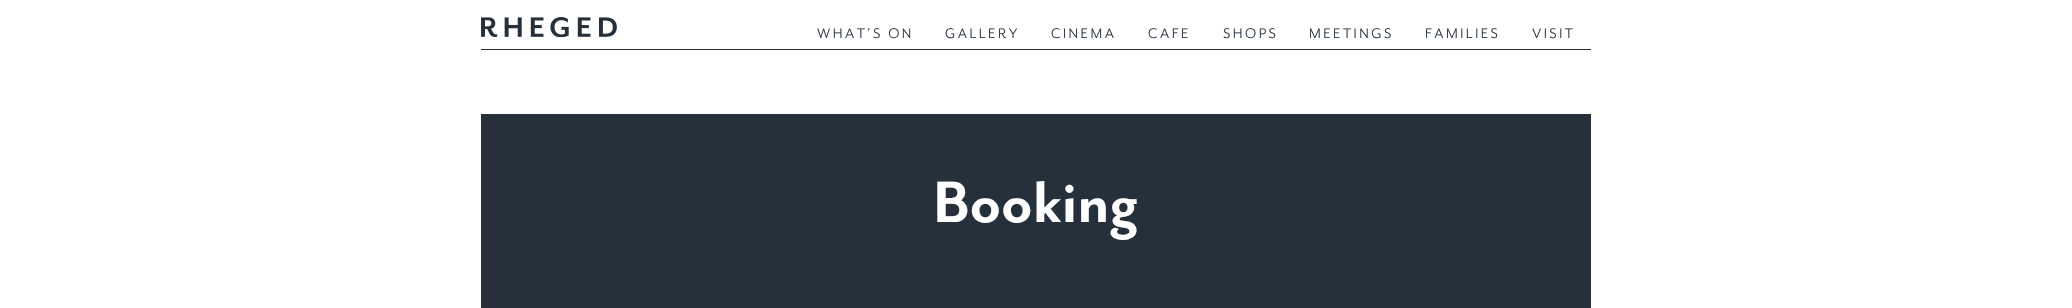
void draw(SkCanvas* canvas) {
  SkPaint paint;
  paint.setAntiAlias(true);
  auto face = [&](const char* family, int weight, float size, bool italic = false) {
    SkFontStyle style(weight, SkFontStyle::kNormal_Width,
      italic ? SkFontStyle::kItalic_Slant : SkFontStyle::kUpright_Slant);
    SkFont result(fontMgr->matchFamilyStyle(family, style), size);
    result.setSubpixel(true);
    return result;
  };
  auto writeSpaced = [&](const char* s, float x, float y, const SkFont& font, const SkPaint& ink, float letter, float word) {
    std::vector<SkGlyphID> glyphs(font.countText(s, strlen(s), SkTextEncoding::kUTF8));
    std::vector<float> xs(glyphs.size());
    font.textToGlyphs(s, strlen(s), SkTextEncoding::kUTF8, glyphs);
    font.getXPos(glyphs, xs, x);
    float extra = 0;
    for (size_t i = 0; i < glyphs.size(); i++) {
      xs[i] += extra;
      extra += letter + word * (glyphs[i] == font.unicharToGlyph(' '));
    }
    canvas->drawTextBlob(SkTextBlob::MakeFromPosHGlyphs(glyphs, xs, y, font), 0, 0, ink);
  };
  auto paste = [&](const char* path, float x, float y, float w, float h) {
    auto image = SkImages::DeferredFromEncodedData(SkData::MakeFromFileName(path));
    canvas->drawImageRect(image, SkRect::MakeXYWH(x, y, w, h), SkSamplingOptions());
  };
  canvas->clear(0xffffffff);
  paste("img/1.png", 481, 17, 136, 20);
  paint.setColor(0xff25303b);
  canvas->drawRect(SkRect::MakeXYWH(481, 49, 1110, 1), paint);
  canvas->drawRect(SkRect::MakeXYWH(481, 114, 1110, 194), paint);
  auto f0 = face("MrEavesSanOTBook", 400, 16);
  {
    const struct { const char* s; float x, y; } items[] = {
      {"WHAT'S ON", 817, 38},
      {"GALLERY", 945, 38},
      {"CINEMA", 1051, 38},
      {"CAFE", 1148, 38},
      {"SHOPS", 1223, 38},
      {"MEETINGS", 1309, 38},
      {"FAMILIES", 1425, 38},
      {"VISIT", 1532, 38},
    };
    for (auto [s, x, y] : items) {
      writeSpaced(s, x, y, f0, paint, 2.5f, 0);
    }
  }
  auto f1 = face("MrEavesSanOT", 700, 67);
  paint.setColor(0xffffffff);
  canvas->drawString("Booking", 933, 222, f1, paint);
}
